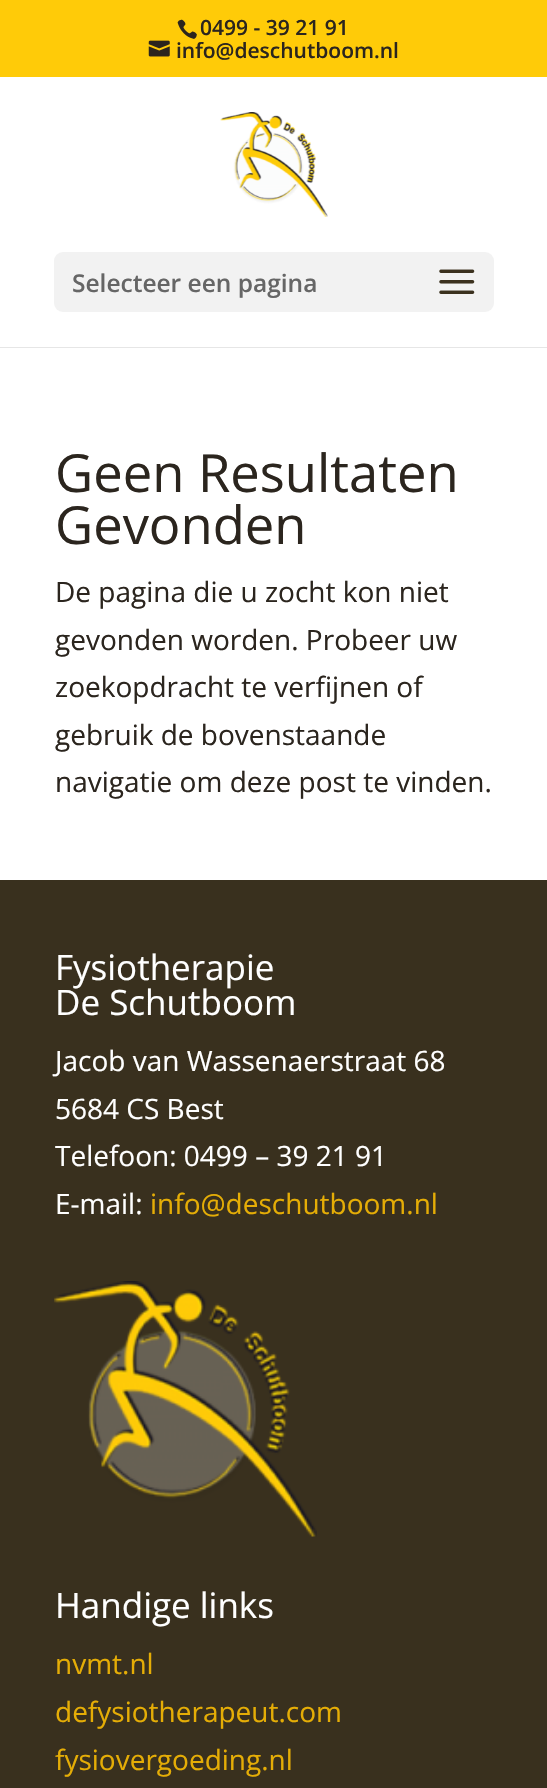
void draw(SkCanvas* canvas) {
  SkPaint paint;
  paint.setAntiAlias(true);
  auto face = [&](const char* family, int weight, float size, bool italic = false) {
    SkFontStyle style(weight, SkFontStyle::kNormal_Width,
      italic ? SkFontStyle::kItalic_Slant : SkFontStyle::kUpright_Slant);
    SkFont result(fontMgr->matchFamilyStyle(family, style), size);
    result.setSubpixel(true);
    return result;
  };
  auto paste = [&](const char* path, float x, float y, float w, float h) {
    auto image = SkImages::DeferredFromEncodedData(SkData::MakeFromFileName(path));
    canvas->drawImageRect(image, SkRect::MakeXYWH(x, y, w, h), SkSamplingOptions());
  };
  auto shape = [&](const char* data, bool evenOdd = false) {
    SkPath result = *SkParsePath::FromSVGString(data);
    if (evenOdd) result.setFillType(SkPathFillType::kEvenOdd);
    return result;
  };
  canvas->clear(0xffffffff);
  paint.setColor(0xffffcb08);
  canvas->drawRect(SkRect::MakeXYWH(0, 0, 547, 77), paint);
  paste("img/1.png", 177, 19, 20, 20);
  paste("img/2.png", 148, 40, 22, 17);
  paint.setColor(0xffe6e6e6);
  canvas->drawPath(shape("M0 346V348H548V79V346Z"), paint);
  paint.setColor(0xffffffff);
  canvas->drawRect(SkRect::MakeXYWH(0, 346, 547, 1), paint);
  paste("img/3.png", 220, 112, 108, 105);
  paint.setColor(0xfff2f2f2);
  canvas->drawRoundRect(SkRect::MakeXYWH(54, 252, 440, 60), 9, 9, paint);
  paste("img/4.png", 439, 269, 36, 25);
  paint.setColor(0xff39301e);
  canvas->drawRect(SkRect::MakeXYWH(0, 880, 547, 908), paint);
  paste("img/5.png", 54, 1281, 263, 256);
  auto f0 = face("Open Sans", 600, 21);
  paint.setColor(0xff2b251e);
  canvas->drawString("0499 - 39 21 91", 200, 35, f0, paint);
  canvas->drawString("info@deschutboom.nl", 176, 58, f0, paint);
  auto f1 = face("Open Sans", 600, 24.5f);
  paint.setColor(0xff666666);
  canvas->drawString("Selecteer een pagina", 72, 292, f1, paint);
  auto f2 = face("Open Sans", 400, 52.5f);
  paint.setColor(0xff2b251e);
  canvas->drawString("Geen Resultaten", 55, 492, f2, paint);
  canvas->drawString("Gevonden", 55, 544, f2, paint);
  auto f3 = face("Open Sans", 400, 28);
  {
    const struct { const char* s; float x, y; } items[] = {
      {"De pagina die u zocht kon niet", 55, 602},
      {"gevonden worden. Probeer uw", 55, 650},
      {"zoekopdracht te verfijnen of", 55, 697},
      {"gebruik de bovenstaande", 55, 745},
      {"navigatie om deze post te vinden.", 55, 792},
    };
    for (auto [s, x, y] : items) {
      canvas->drawString(s, x, y, f3, paint);
    }
  }
  auto f4 = face("Open Sans", 400, 35);
  paint.setColor(0xffffffff);
  canvas->drawString("Fysiotherapie", 55, 980, f4, paint);
  canvas->drawString("De Schutboom", 55, 1015, f4, paint);
  {
    const struct { const char* s; float x, y; } items[] = {
      {"Jacob van Wassenaerstraat 68", 55, 1071},
      {"5684 CS Best", 55, 1119},
      {"Telefoon: 0499 – 39 21 91", 55, 1166},
      {"E-mail:", 55, 1214},
    };
    for (auto [s, x, y] : items) {
      canvas->drawString(s, x, y, f3, paint);
    }
  }
  paint.setColor(0xffe5ad06);
  canvas->drawString("info@deschutboom.nl", 150, 1214, f3, paint);
  paint.setColor(0xffffffff);
  canvas->drawString("Handige links", 55, 1618, f4, paint);
  paint.setColor(0xffe5ad06);
  {
    const struct { const char* s; float x, y; } items[] = {
      {"nvmt.nl", 55, 1674},
      {"defysiotherapeut.com", 55, 1722},
      {"fysiovergoeding.nl", 55, 1770},
    };
    for (auto [s, x, y] : items) {
      canvas->drawString(s, x, y, f3, paint);
    }
  }
}
